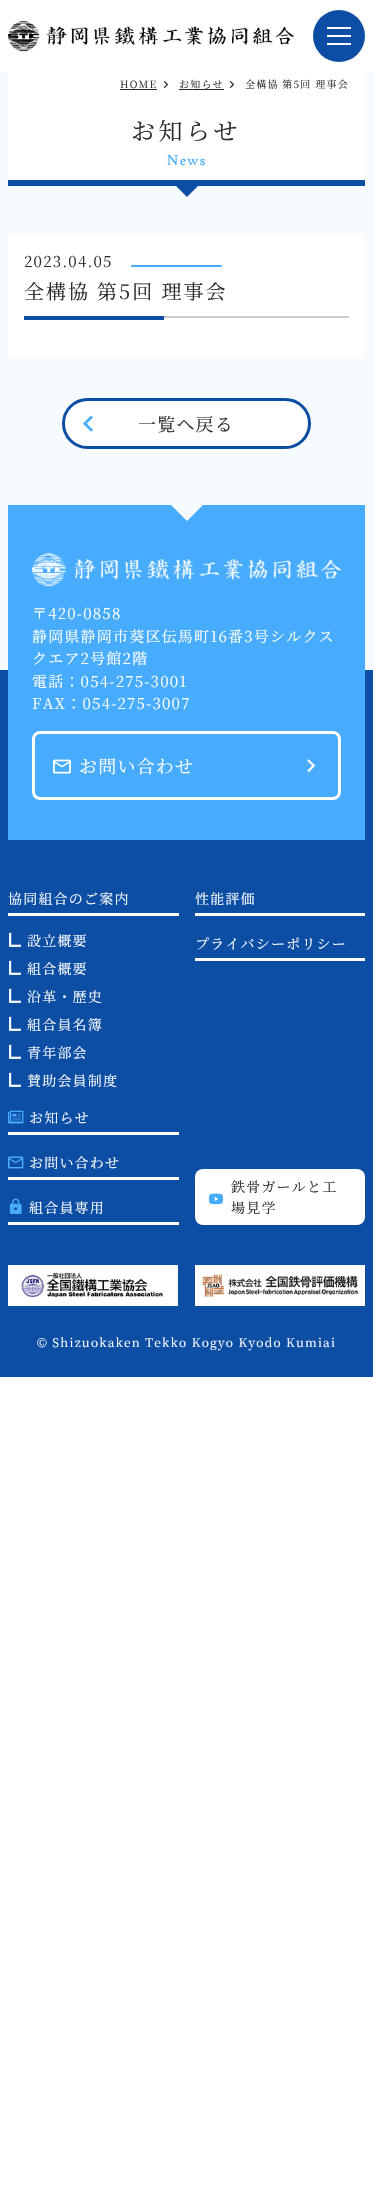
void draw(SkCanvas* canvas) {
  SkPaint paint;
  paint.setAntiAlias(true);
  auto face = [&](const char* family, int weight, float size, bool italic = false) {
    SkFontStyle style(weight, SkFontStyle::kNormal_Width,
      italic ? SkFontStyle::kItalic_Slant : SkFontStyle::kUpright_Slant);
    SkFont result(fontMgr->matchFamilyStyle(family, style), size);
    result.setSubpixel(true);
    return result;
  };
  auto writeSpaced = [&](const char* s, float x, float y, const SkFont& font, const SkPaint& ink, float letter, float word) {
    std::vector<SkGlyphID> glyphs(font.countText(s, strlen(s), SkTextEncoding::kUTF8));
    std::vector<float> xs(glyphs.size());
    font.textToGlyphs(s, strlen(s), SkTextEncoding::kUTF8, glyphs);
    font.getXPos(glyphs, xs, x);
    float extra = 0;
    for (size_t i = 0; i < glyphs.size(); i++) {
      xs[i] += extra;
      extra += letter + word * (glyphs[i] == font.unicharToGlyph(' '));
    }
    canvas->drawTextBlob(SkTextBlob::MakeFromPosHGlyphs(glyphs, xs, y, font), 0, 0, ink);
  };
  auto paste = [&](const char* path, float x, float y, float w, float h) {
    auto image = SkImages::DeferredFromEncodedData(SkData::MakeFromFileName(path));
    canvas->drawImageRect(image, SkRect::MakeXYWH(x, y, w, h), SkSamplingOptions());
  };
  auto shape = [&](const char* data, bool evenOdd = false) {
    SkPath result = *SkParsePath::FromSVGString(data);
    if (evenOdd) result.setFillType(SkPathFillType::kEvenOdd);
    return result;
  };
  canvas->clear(0xffffffff);
  paste("img/1.png", 8, 20, 286, 32);
  paint.setColor(0xff0c4ea4);
  canvas->drawCircle(339, 36, 26, paint);
  {
    const struct { float x, y, w, h; SkColor color; } items[] = {
      {327, 27, 24, 2, 0xffffffff},
      {327, 35, 24, 2, 0xffffffff},
      {327, 43, 24, 2, 0xffffffff},
      {0, 72, 373, 598, 0xfff6fbff},
      {8, 72, 357, 108, 0xffffffff},
      {8, 180, 357, 6, 0xff0c4ea4},
      {120, 89, 37, 1, 0xff2a2a2a},
    };
    for (auto [x, y, w, h, color] : items) {
      paint.setColor(color);
      canvas->drawRect(SkRect::MakeXYWH(x, y, w, h), paint);
    }
  }
  paste("img/2.png", 163, 81, 6, 7);
  canvas->drawRect(SkRect::MakeXYWH(179, 89, 45, 1), paint);
  paste("img/2.png", 229, 81, 6, 7);
  paint.setColor(0xff0c4ea4);
  canvas->drawPath(shape("M171 181H203L187 197Z"), paint);
  paint.setColor(0xffffffff);
  canvas->drawRect(SkRect::MakeXYWH(8, 234, 357, 124), paint);
  paint.setColor(0xff47abfe);
  canvas->drawRoundRect(SkRect::MakeXYWH(131, 265, 91, 2), 1, 1, paint);
  paint.setColor(0xffcccccc);
  canvas->drawRect(SkRect::MakeXYWH(164, 316, 185, 2), paint);
  paint.setColor(0xff0c4ea4);
  canvas->drawRect(SkRect::MakeXYWH(24, 316, 140, 4), paint);
  paint.setColor(0xffffffff);
  canvas->drawRoundRect(SkRect::MakeXYWH(63.5f, 399.5f, 246, 48), 24, 24, paint);
  paint.setStroke(true);
  paint.setStrokeWidth(3);
  paint.setColor(0xff0c4ea4);
  canvas->drawRoundRect(SkRect::MakeXYWH(63.5f, 399.5f, 246, 48), 24, 24, paint);
  paste("img/3.png", 83, 415, 10, 17);
  paint.setStroke(false);
  canvas->drawRect(SkRect::MakeXYWH(0, 670, 373, 707), paint);
  paint.setColor(0xff47abfe);
  canvas->drawRect(SkRect::MakeXYWH(8, 505, 357, 335), paint);
  paint.setColor(0xfff6fbff);
  canvas->drawPath(shape("M171 505H203L187 521Z"), paint);
  paste("img/4.png", 32, 553, 309, 34);
  paint.setStroke(true);
  paint.setColor(0xffffffff);
  canvas->drawRoundRect(SkRect::MakeXYWH(33.5f, 732.5f, 306, 66), 6.5f, 6.5f, paint);
  paste("img/5.png", 53, 759, 18, 15);
  paste("img/6.png", 307, 759, 9, 14);
  paint.setStroke(false);
  canvas->drawRect(SkRect::MakeXYWH(8, 913, 171, 3), paint);
  paste("img/7.png", 9, 932, 12, 15);
  paste("img/7.png", 9, 960, 12, 15);
  paste("img/7.png", 9, 988, 12, 15);
  paste("img/7.png", 9, 1016, 12, 15);
  paste("img/7.png", 9, 1044, 12, 15);
  paste("img/7.png", 9, 1072, 12, 15);
  {
    const struct { float x, y, w, h; SkColor color; } items[] = {
      {195, 913, 170, 3, 0xffffffff},
      {195, 958, 170, 3, 0xffffffff},
      {8, 1132, 171, 3, 0xffffffff},
    };
    for (auto [x, y, w, h, color] : items) {
      paint.setColor(color);
      canvas->drawRect(SkRect::MakeXYWH(x, y, w, h), paint);
    }
  }
  paste("img/8.png", 8, 1110, 16, 14);
  canvas->drawRect(SkRect::MakeXYWH(8, 1177, 171, 3), paint);
  paste("img/9.png", 8, 1156, 16, 13);
  canvas->drawRect(SkRect::MakeXYWH(8, 1222, 171, 3), paint);
  paste("img/10.png", 9, 1198, 13, 16);
  canvas->drawRoundRect(SkRect::MakeXYWH(195, 1169, 170, 56), 8, 8, paint);
  paste("img/11.png", 209, 1193, 14, 12);
  paste("img/12.png", 8, 1265, 170, 41);
  paste("img/13.png", 195, 1265, 170, 41);
  auto f0 = face("Noto Serif JP", 400, 10);
  paint.setColor(0xff2a2a2a);
  {
    const struct { const char* s; float x, y; } items[] = {
      {"HOME", 120, 88},
      {"お知らせ", 179, 88},
      {"全構協 第5回 理事会", 245, 88},
    };
    for (auto [s, x, y] : items) {
      writeSpaced(s, x, y, f0, paint, 1.2f, 0);
    }
  }
  auto f1 = face("Noto Serif JP", 400, 24);
  writeSpaced("お知らせ", 131, 140, f1, paint, 3.5f, 0);
  auto f2 = face("Lusitana", 400, 14);
  paint.setColor(0xff47abfe);
  writeSpaced("News", 167, 165, f2, paint, 1.5f, 0);
  auto f3 = face("Noto Serif JP", 400, 15);
  paint.setColor(0xff2a2a2a);
  writeSpaced("2023.04.05", 24, 267, f3, paint, 1.2f, 0);
  auto f4 = face("Noto Serif JP", 400, 20);
  writeSpaced("全構協 第5回 理事会", 24, 299, f4, paint, 2, 0);
  auto f5 = face("Noto Serif JP", 400, 18);
  writeSpaced("一覧へ戻る", 138, 431, f5, paint, 1.2f, 0);
  paint.setColor(0xffffffff);
  {
    const struct { const char* s; float x, y; } items[] = {
      {"〒420-0858", 32, 619},
      {"静岡県静岡市葵区伝馬町16番3号シルクス", 32, 642},
      {"クエア2号館2階", 32, 664},
      {"電話：054-275-3001", 32, 687},
      {"FAX：054-275-3007", 32, 709},
    };
    for (auto [s, x, y] : items) {
      writeSpaced(s, x, y, f3, paint, 1.2f, 0);
    }
  }
  writeSpaced("お問い合わせ", 79, 773, f5, paint, 1.2f, 0);
  auto f6 = face("Noto Serif JP", 400, 14);
  {
    const struct { const char* s; float x, y; } items[] = {
      {"協同組合のご案内", 8, 904},
      {"設立概要", 27, 946},
      {"組合概要", 27, 974},
      {"沿革・歴史", 27, 1002},
      {"組合員名簿", 27, 1030},
      {"青年部会", 27, 1058},
      {"賛助会員制度", 27, 1086},
      {"性能評価", 195, 904},
      {"プライバシーポリシー", 195, 949},
      {"お知らせ", 29, 1123},
      {"お問い合わせ", 29, 1168},
      {"組合員専用", 29, 1213},
    };
    for (auto [s, x, y] : items) {
      writeSpaced(s, x, y, f6, paint, 1.2f, 0);
    }
  }
  paint.setColor(0xff2a2a2a);
  writeSpaced("鉄骨ガールと工", 231, 1192, f6, paint, 1.2f, 0);
  writeSpaced("場見学", 231, 1213, f6, paint, 1.2f, 0);
  auto f7 = face("Noto Serif JP", 400, 12);
  paint.setColor(0xffffffff);
  writeSpaced("© Shizuokaken Tekko Kogyo Kyodo Kumiai", 37, 1347, f7, paint, 1.2f, 0);
}
